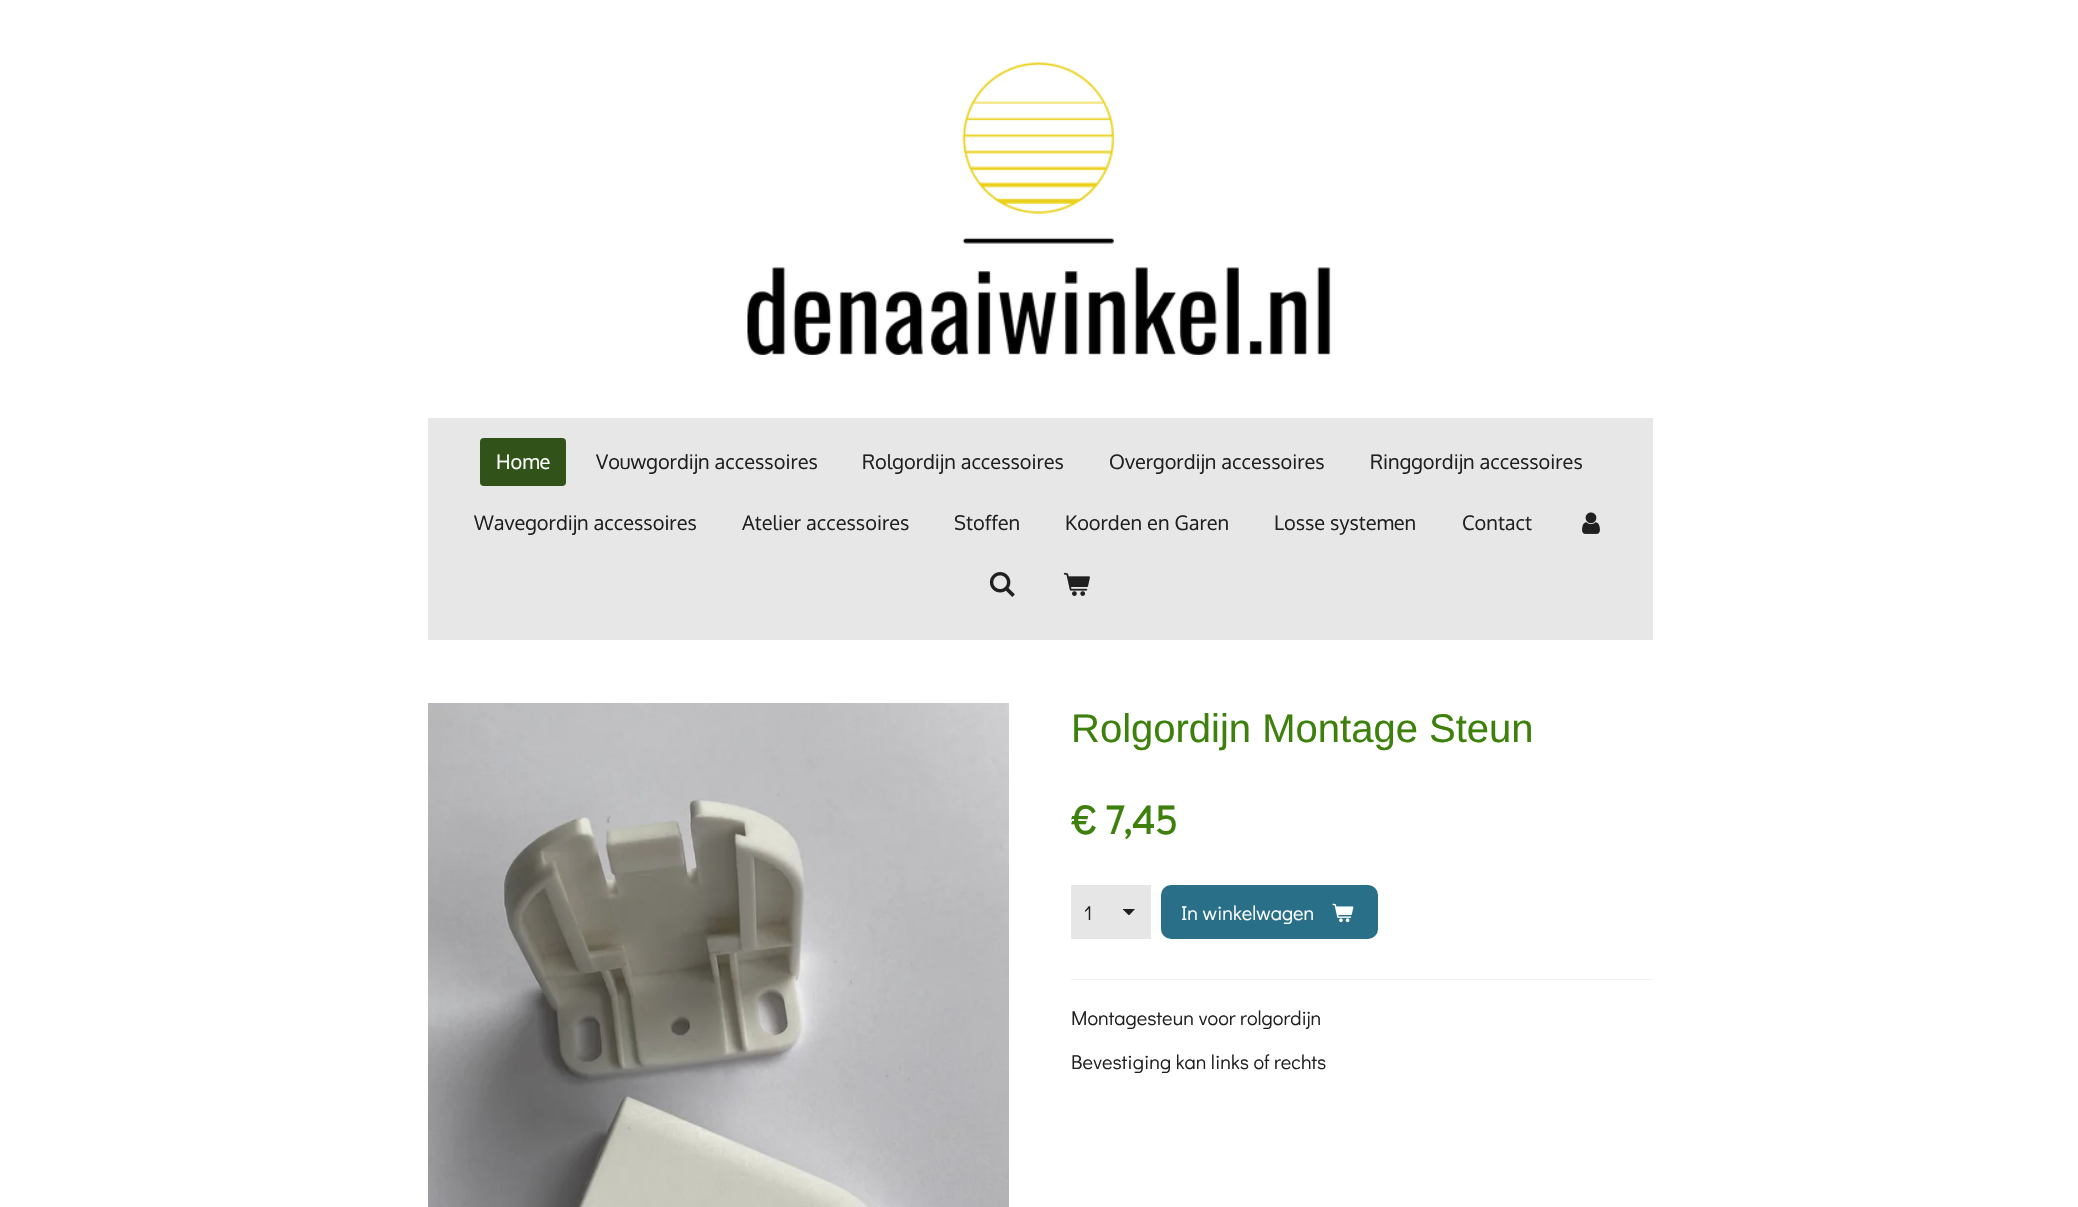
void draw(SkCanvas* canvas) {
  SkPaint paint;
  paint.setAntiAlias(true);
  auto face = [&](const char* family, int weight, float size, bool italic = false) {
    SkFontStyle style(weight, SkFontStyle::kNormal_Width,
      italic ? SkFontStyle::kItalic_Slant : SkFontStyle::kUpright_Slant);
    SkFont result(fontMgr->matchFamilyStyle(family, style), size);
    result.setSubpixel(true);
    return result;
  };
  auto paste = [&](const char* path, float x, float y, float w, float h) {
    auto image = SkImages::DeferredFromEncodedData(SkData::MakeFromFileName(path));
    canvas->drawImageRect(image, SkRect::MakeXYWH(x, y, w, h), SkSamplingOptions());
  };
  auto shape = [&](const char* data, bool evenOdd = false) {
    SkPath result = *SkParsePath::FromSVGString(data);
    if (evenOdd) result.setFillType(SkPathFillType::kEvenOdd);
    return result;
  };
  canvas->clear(0xffffffff);
  paste("img/1.png", 747, 62, 584, 293);
  paint.setColor(0xffe7e7e7);
  canvas->drawRect(SkRect::MakeXYWH(428, 418, 1225, 222), paint);
  paint.setColor(0xff315219);
  canvas->drawRoundRect(SkRect::MakeXYWH(480, 438, 86, 48), 4, 4, paint);
  paste("img/2.png", 1582, 512, 18, 22);
  paste("img/3.png", 989, 572, 26, 25);
  paste("img/4.png", 1063, 572, 27, 24);
  paste("img/5.png", 428, 703, 581, 504);
  paint.setColor(0xffe6e6e6);
  canvas->drawRect(SkRect::MakeXYWH(1071, 885, 80, 54), paint);
  canvas->save();
  canvas->clipRect(SkRect::MakeXYWH(1123, 909, 12, 6));
  paint.setColor(0xff202020);
  canvas->drawPath(shape("M1129 915.5L1122.5 909H1135Z"), paint);
  canvas->restore();
  paint.setColor(0xff296f87);
  canvas->drawRoundRect(SkRect::MakeXYWH(1161, 885, 217, 54), 10, 10, paint);
  paste("img/6.png", 1332, 903, 22, 20);
  paint.setColor(0xffefefef);
  canvas->drawRect(SkRect::MakeXYWH(1071, 979, 582, 1), paint);
  auto f0 = face("Oxygen", 400, 20);
  paint.setColor(0xffffffff);
  canvas->drawString("Home", 496, 469, f0, paint);
  paint.setColor(0xff202020);
  {
    const struct { const char* s; float x, y; } items[] = {
      {"Vouwgordijn accessoires", 596, 469},
      {"Rolgordijn accessoires", 862, 469},
      {"Overgordijn accessoires", 1109, 469},
      {"Ringgordijn accessoires", 1370, 469},
      {"Wavegordijn accessoires", 474, 530},
      {"Atelier accessoires", 742, 530},
      {"Stoffen", 954, 530},
      {"Koorden en Garen", 1065, 530},
      {"Losse systemen", 1274, 530},
      {"Contact", 1462, 530},
    };
    for (auto [s, x, y] : items) {
      canvas->drawString(s, x, y, f0, paint);
    }
  }
  auto f1 = face("Arimo", 400, 40);
  paint.setColor(0xff3d810c);
  canvas->drawString("Rolgordijn Montage Steun", 1071, 742, f1, paint);
  auto f2 = face("Didact Gothic", 700, 40);
  canvas->drawString("€ 7,45", 1071, 834, f2, paint);
  auto f3 = face("Didact Gothic", 400, 20);
  paint.setColor(0xff202020);
  canvas->drawString("1", 1084, 920, f3, paint);
  paint.setColor(0xffffffff);
  canvas->drawString("In winkelwagen", 1181, 920, f3, paint);
  paint.setColor(0xff202020);
  canvas->drawString("Montagesteun voor rolgordijn", 1071, 1025, f3, paint);
  canvas->drawString("Bevestiging kan links of rechts", 1071, 1069, f3, paint);
}
